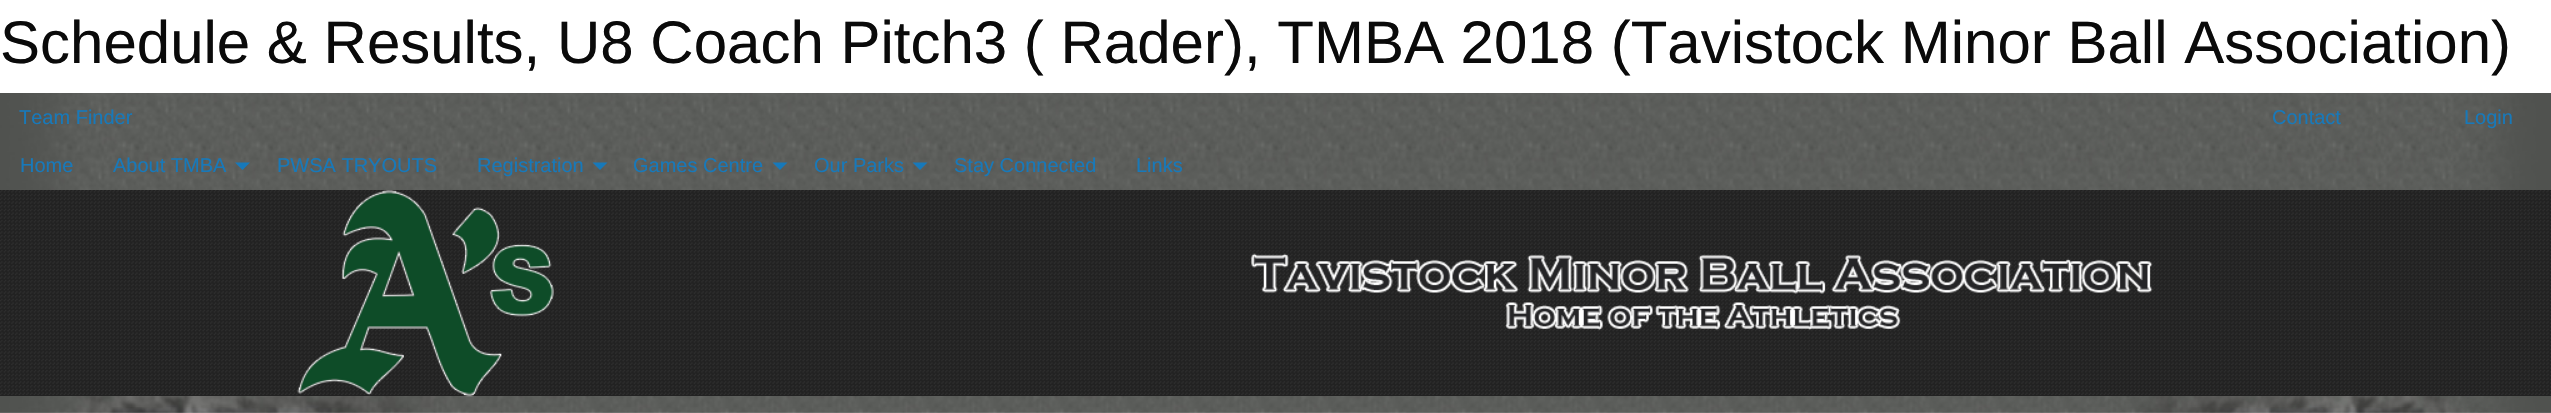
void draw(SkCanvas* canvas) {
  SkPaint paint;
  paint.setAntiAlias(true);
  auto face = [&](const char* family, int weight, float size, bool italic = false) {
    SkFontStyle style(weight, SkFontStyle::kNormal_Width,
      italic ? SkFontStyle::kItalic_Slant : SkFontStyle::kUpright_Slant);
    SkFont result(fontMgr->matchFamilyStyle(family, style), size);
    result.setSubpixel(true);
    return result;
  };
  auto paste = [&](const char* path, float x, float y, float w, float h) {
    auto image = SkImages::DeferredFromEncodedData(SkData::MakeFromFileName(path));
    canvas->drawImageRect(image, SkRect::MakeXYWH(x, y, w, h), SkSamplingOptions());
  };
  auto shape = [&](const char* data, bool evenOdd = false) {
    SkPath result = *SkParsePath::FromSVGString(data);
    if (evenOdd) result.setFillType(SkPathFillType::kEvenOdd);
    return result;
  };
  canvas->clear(0xffffffff);
  paste("img/1.png", 0, 93, 2551, 320);
  paint.setColor(0xff1779ba);
  canvas->drawPath(shape("M235 162.5H250L242.5 170Z"), paint);
  canvas->drawPath(shape("M592.5 162.5H607.5L600 170Z"), paint);
  canvas->drawPath(shape("M772.5 162.5H787.5L780 170Z"), paint);
  canvas->drawPath(shape("M912.5 162.5H927.5L920 170Z"), paint);
  paint.setColor(0xff222222);
  canvas->drawRect(SkRect::MakeXYWH(0, 190, 2551, 206), paint);
  paste("img/2.png", 0, 190, 2551, 205);
  paste("img/3.png", 297, 190, 257, 207);
  paste("img/4.png", 1251, 253, 902, 78);
  auto f0 = face("Liberation Sans", 400, 60);
  paint.setColor(0xff0a0a0a);
  canvas->drawString("Schedule & Results, U8 Coach Pitch3 ( Rader), TMBA 2018 (Tavistock Minor Ball Association)", 0, 63, f0, paint);
  auto f1 = face("Liberation Sans", 400, 20);
  paint.setColor(0xff1779ba);
  {
    const struct { const char* s; float x, y; } items[] = {
      {"Team Finder", 19, 124},
      {"Contact", 2272, 124},
      {"Login", 2464, 124},
      {"Home", 20, 172},
      {"About TMBA", 113, 172},
      {"PWSA TRYOUTS", 277, 172},
      {"Registration", 477, 172},
      {"Games Centre", 633, 172},
      {"Our Parks", 814, 172},
      {"Stay Connected", 954, 172},
      {"Links", 1136, 172},
    };
    for (auto [s, x, y] : items) {
      canvas->drawString(s, x, y, f1, paint);
    }
  }
}
